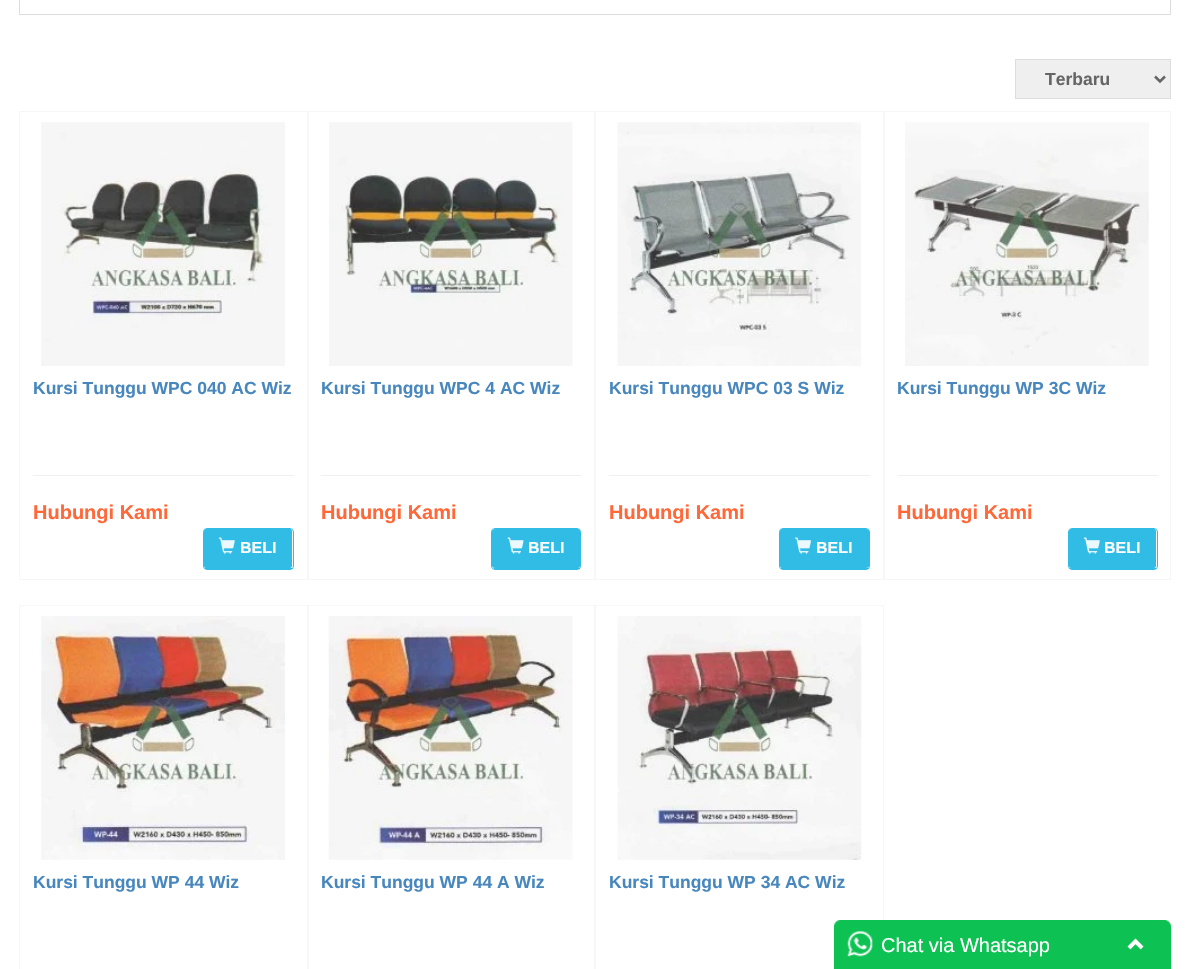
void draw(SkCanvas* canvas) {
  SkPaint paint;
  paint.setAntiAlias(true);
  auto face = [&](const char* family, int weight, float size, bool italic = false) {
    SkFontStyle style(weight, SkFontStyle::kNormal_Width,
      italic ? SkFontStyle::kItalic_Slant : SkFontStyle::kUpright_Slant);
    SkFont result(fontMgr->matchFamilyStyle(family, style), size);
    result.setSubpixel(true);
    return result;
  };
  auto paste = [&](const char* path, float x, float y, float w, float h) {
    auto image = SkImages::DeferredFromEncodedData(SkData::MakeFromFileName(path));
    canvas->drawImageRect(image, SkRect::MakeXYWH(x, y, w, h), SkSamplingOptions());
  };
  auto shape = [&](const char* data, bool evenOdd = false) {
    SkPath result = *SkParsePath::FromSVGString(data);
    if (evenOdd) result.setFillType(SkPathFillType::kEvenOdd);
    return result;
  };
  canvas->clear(0xffffffff);
  paint.setStroke(true);
  paint.setStrokeWidth(1);
  paint.setColor(0xffdddddd);
  canvas->drawRect(SkRect::MakeXYWH(19.5f, -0.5f, 1151, 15), paint);
  paint.setStroke(false);
  paint.setColor(0xffefefef);
  canvas->drawRect(SkRect::MakeXYWH(1015.5f, 59.5f, 155, 39), paint);
  paint.setStroke(true);
  paint.setColor(0xffdddddd);
  canvas->drawRect(SkRect::MakeXYWH(1015.5f, 59.5f, 155, 39), paint);
  paint.setStrokeWidth(2.5f);
  paint.setColor(0xff656565);
  canvas->drawPath(shape("M1155 76.5L1160 81.5L1165 76.5"), paint);
  paint.setStrokeWidth(1);
  paint.setColor(0xfff7f7f7);
  canvas->drawRect(SkRect::MakeXYWH(19.5f, 111.5f, 288, 468), paint);
  paste("img/1.png", 41, 122, 244, 244);
  paint.setStroke(false);
  paint.setColor(0xfff0f0f0);
  canvas->drawRect(SkRect::MakeXYWH(33, 475, 261, 1), paint);
  paint.setColor(0xff30bce5);
  canvas->drawPath(shape("M206 529H290C291 529 292 530 292 531V566C292 567 291 568 290 568H206C205 568 204 567 204 566V531C204 530 205 529 206 529Z"), paint);
  paint.setStroke(true);
  canvas->drawRoundRect(SkRect::MakeXYWH(203.5f, 528.5f, 90, 41), 3.5f, 3.5f, paint);
  paint.setStroke(false);
  canvas->drawRect(SkRect::MakeXYWH(205, 568, 88, 1), paint);
  paste("img/2.png", 218, 537, 17, 17);
  paint.setStroke(true);
  paint.setColor(0xfff7f7f7);
  canvas->drawRect(SkRect::MakeXYWH(308.5f, 111.5f, 286, 468), paint);
  paste("img/3.png", 329, 122, 244, 244);
  paint.setStroke(false);
  paint.setColor(0xfff0f0f0);
  canvas->drawRect(SkRect::MakeXYWH(321, 475, 260, 1), paint);
  paint.setColor(0xff30bce5);
  canvas->drawPath(shape("M495 529H578C579 529 580 530 580 531V566C580 567 579 568 578 568H495C494 568 492 567 492 566V531C492 530 494 529 495 529Z"), paint);
  paint.setStroke(true);
  canvas->drawRoundRect(SkRect::MakeXYWH(491.5f, 528.5f, 89, 41), 3.5f, 3.5f, paint);
  paint.setStroke(false);
  canvas->drawRect(SkRect::MakeXYWH(494, 568, 86, 1), paint);
  paste("img/4.png", 507, 537, 17, 17);
  paint.setStroke(true);
  paint.setColor(0xfff7f7f7);
  canvas->drawRect(SkRect::MakeXYWH(595.5f, 111.5f, 288, 468), paint);
  paste("img/5.png", 617, 122, 244, 244);
  paint.setStroke(false);
  paint.setColor(0xfff0f0f0);
  canvas->drawRect(SkRect::MakeXYWH(609, 475, 261, 1), paint);
  paint.setColor(0xff30bce5);
  canvas->drawPath(shape("M782 529H866C868 529 869 530 869 531V566C869 567 868 568 866 568H782C781 568 780 567 780 566V531C780 530 781 529 782 529Z"), paint);
  paint.setStroke(true);
  canvas->drawRoundRect(SkRect::MakeXYWH(779.5f, 528.5f, 90, 41), 3.5f, 3.5f, paint);
  paint.setStroke(false);
  canvas->drawRect(SkRect::MakeXYWH(781, 568, 88, 1), paint);
  paste("img/6.png", 795, 537, 16, 17);
  paint.setStroke(true);
  paint.setColor(0xfff7f7f7);
  canvas->drawRect(SkRect::MakeXYWH(884.5f, 111.5f, 286, 468), paint);
  paste("img/7.png", 905, 122, 244, 244);
  paint.setStroke(false);
  paint.setColor(0xfff0f0f0);
  canvas->drawRect(SkRect::MakeXYWH(898, 475, 260, 1), paint);
  paint.setColor(0xff30bce5);
  canvas->drawPath(shape("M1071 529H1154C1155 529 1156 530 1156 531V566C1156 567 1155 568 1154 568H1071C1070 568 1069 567 1069 566V531C1069 530 1070 529 1071 529Z"), paint);
  paint.setStroke(true);
  canvas->drawRoundRect(SkRect::MakeXYWH(1068.5f, 528.5f, 89, 41), 3.5f, 3.5f, paint);
  paint.setStroke(false);
  canvas->drawRect(SkRect::MakeXYWH(1070, 568, 86, 1), paint);
  paste("img/2.png", 1083, 537, 17, 17);
  paint.setStroke(true);
  paint.setColor(0xfff7f7f7);
  canvas->drawRect(SkRect::MakeXYWH(19.5f, 605.5f, 288, 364), paint);
  paste("img/8.png", 41, 616, 244, 244);
  canvas->drawRect(SkRect::MakeXYWH(308.5f, 605.5f, 286, 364), paint);
  paste("img/9.png", 328, 616, 245, 244);
  canvas->drawRect(SkRect::MakeXYWH(595.5f, 605.5f, 288, 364), paint);
  paste("img/10.png", 617, 616, 245, 244);
  paint.setColor(0xff0dc152);
  canvas->drawPath(shape("M840 920.5H1165C1168 920.5 1170.5 923 1170.5 926V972.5H834.5V926C834.5 923 837 920.5 840 920.5Z"), paint);
  paint.setStroke(false);
  canvas->drawPath(shape("M839 921H1166C1168 921 1170 923 1170 925V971H835V925C835 923 837 921 839 921Z"), paint);
  paste("img/11.png", 847, 931, 26, 26);
  paste("img/12.png", 1127, 938, 17, 12);
  auto f0 = face("Liberation Sans", 700, 17.5f);
  paint.setColor(0xff656565);
  canvas->drawString("Terbaru", 1045, 85, f0, paint);
  paint.setColor(0xff4787be);
  canvas->drawString("Kursi Tunggu WPC 040 AC Wiz", 33, 394, f0, paint);
  auto f1 = face("Liberation Sans", 700, 20);
  paint.setColor(0xffff6838);
  canvas->drawString("Hubungi Kami", 33, 519, f1, paint);
  auto f2 = face("Liberation Sans", 700, 16);
  paint.setColor(0xffffffff);
  canvas->drawString("BELI", 240, 553, f2, paint);
  paint.setColor(0xff4787be);
  canvas->drawString("Kursi Tunggu WPC 4 AC Wiz", 321, 394, f0, paint);
  paint.setColor(0xffff6838);
  canvas->drawString("Hubungi Kami", 321, 519, f1, paint);
  paint.setColor(0xffffffff);
  canvas->drawString("BELI", 528, 553, f2, paint);
  paint.setColor(0xff4787be);
  canvas->drawString("Kursi Tunggu WPC 03 S Wiz", 609, 394, f0, paint);
  paint.setColor(0xffff6838);
  canvas->drawString("Hubungi Kami", 609, 519, f1, paint);
  paint.setColor(0xffffffff);
  canvas->drawString("BELI", 816, 553, f2, paint);
  paint.setColor(0xff4787be);
  canvas->drawString("Kursi Tunggu WP 3C Wiz", 897, 394, f0, paint);
  paint.setColor(0xffff6838);
  canvas->drawString("Hubungi Kami", 897, 519, f1, paint);
  paint.setColor(0xffffffff);
  canvas->drawString("BELI", 1104, 553, f2, paint);
  paint.setColor(0xff4787be);
  {
    const struct { const char* s; float x, y; } items[] = {
      {"Kursi Tunggu WP 44 Wiz", 33, 888},
      {"Kursi Tunggu WP 44 A Wiz", 321, 888},
      {"Kursi Tunggu WP 34 AC Wiz", 609, 888},
    };
    for (auto [s, x, y] : items) {
      canvas->drawString(s, x, y, f0, paint);
    }
  }
  auto f3 = face("Liberation Sans", 400, 20);
  paint.setColor(0xffffffff);
  canvas->drawString("Chat via Whatsapp", 881, 952, f3, paint);
}
